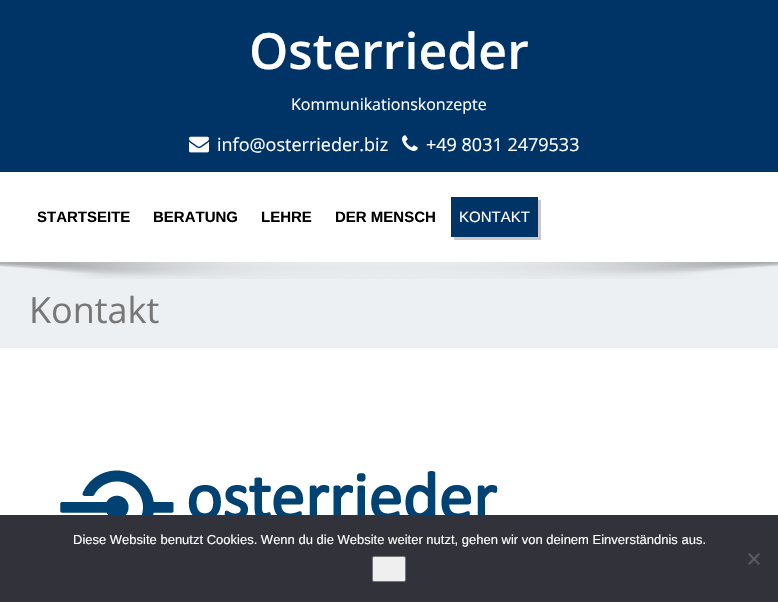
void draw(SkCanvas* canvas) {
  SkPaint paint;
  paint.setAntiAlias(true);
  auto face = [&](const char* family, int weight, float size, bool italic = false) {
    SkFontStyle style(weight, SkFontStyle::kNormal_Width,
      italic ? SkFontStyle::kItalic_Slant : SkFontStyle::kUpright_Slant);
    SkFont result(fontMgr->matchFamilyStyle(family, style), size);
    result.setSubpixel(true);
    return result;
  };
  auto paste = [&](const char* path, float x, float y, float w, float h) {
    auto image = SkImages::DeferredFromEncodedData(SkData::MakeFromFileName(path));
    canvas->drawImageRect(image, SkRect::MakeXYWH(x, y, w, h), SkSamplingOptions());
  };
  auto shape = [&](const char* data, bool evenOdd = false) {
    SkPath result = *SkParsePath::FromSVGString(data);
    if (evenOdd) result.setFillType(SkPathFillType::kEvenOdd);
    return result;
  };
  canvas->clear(0xffffffff);
  paint.setColor(0xff003366);
  canvas->drawRect(SkRect::MakeXYWH(0, 0, 778, 172), paint);
  paste("img/1.png", 189, 136, 20, 17);
  paste("img/2.png", 402, 135, 16, 16);
  paint.setColor(0xffc9c9c9);
  canvas->drawPath(shape("M454 237V240H541V200H538V237Z"), paint);
  paint.setColor(0xff003366);
  canvas->drawRect(SkRect::MakeXYWH(451, 197, 87, 40), paint);
  paint.setColor(0xffedf0f2);
  canvas->drawRect(SkRect::MakeXYWH(0, 262, 778, 86), paint);
  paste("img/3.png", 0, 262, 778, 17);
  paste("img/4.png", 60, 470, 439, 45);
  paint.setColor(0xff32323a);
  canvas->drawRect(SkRect::MakeXYWH(0, 515, 778, 87), paint);
  paint.setColor(0xffefefef);
  canvas->drawRoundRect(SkRect::MakeXYWH(372.5f, 556.5f, 33, 25), 1.5f, 1.5f, paint);
  paint.setStroke(true);
  paint.setStrokeWidth(1);
  paint.setColor(0xff767676);
  canvas->drawRoundRect(SkRect::MakeXYWH(372.5f, 556.5f, 33, 25), 1.5f, 1.5f, paint);
  paint.setStroke(false);
  paint.setColor(0xff59595d);
  canvas->drawPath(shape("M758.5 553L760 554.5L749.5 565L748 563.5Z"), paint);
  canvas->drawPath(shape("M748 554.5L749.5 553L760 563.5L758.5 565Z"), paint);
  auto f0 = face("Open Sans", 600, 50);
  paint.setColor(0xffffffff);
  canvas->drawString("Osterrieder", 249, 69, f0, paint);
  auto f1 = face("Open Sans", 400, 16);
  canvas->drawString("Kommunikationskonzepte", 291, 110, f1, paint);
  auto f2 = face("Open Sans", 400, 18);
  canvas->drawString("info@osterrieder.biz", 217, 151, f2, paint);
  canvas->drawString("+49 8031 2479533", 426, 151, f2, paint);
  auto f3 = face("Liberation Sans", 700, 15);
  paint.setColor(0xff000000);
  {
    const struct { const char* s; float x, y; } items[] = {
      {"STARTSEITE", 37, 222},
      {"BERATUNG", 153, 222},
      {"LEHRE", 261, 222},
      {"DER MENSCH", 335, 222},
    };
    for (auto [s, x, y] : items) {
      canvas->drawString(s, x, y, f3, paint);
    }
  }
  auto f4 = face("Liberation Sans", 400, 15);
  paint.setColor(0xffffffff);
  canvas->drawString("KONTAKT", 459, 222, f4, paint);
  auto f5 = face("Open Sans", 400, 36);
  paint.setColor(0xff777777);
  canvas->drawString("Kontakt", 29, 323, f5, paint);
  auto f6 = face("Liberation Sans", 400, 13);
  paint.setColor(0xffffffff);
  canvas->drawString("Diese Website benutzt Cookies. Wenn du die Website weiter nutzt, gehen wir von deinem Einverständnis aus.", 73, 544, f6, paint);
}
